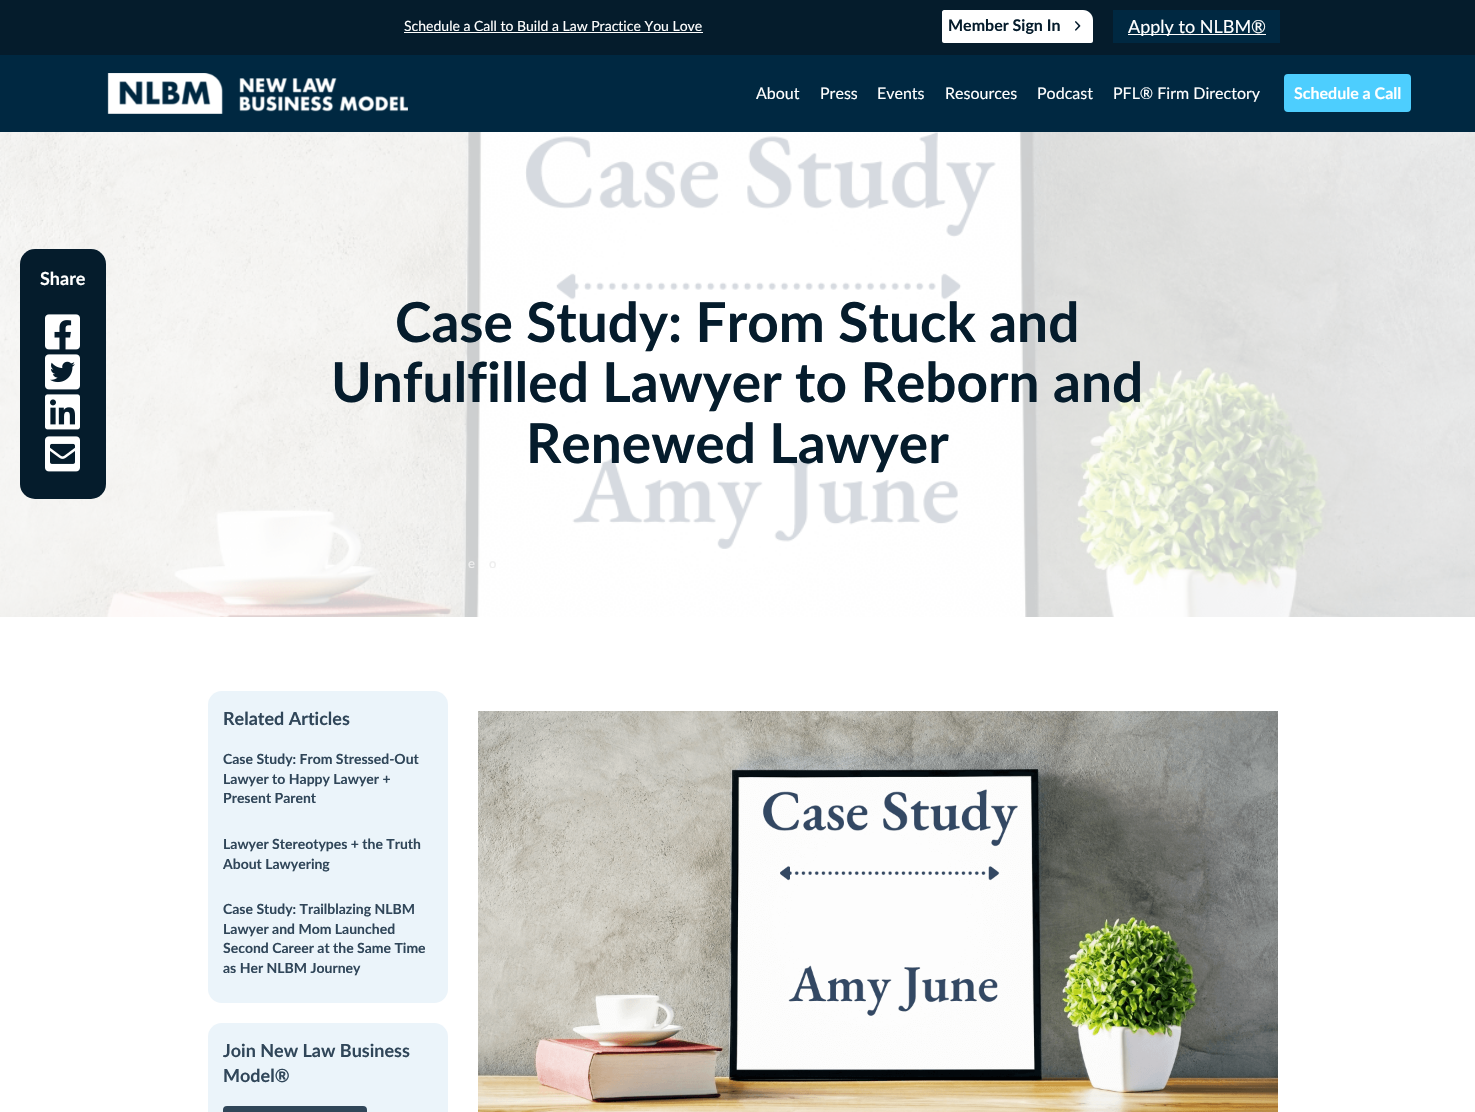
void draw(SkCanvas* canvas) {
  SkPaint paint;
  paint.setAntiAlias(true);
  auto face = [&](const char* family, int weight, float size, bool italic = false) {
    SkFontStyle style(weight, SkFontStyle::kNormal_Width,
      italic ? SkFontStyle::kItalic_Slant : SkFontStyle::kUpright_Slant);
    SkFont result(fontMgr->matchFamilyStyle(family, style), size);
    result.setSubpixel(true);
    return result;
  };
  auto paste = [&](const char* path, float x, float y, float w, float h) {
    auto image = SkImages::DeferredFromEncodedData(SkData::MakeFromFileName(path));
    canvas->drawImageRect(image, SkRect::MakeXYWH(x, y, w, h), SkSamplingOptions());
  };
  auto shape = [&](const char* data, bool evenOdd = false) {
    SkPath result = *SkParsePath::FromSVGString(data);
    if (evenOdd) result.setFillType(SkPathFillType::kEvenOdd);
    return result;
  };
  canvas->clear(0xffffffff);
  paint.setColor(0xff051c2c);
  canvas->drawRect(SkRect::MakeXYWH(0, 0, 1475, 55), paint);
  paint.setColor(0xffffffff);
  canvas->drawRect(SkRect::MakeXYWH(404, 32, 299, 1), paint);
  canvas->drawPath(shape("M944 10H1083C1088.5 10 1093 14.5 1093 20V41C1093 42 1092 43 1091 43H944C943 43 942 42 942 41V12C942 11 943 10 944 10Z"), paint);
  paste("img/1.png", 1075, 21, 6, 10);
  {
    const struct { float x, y, w, h; SkColor color; } items[] = {
      {1113, 10, 167, 33, 0xff002841},
      {1128, 34, 138, 1, 0xffffffff},
      {0, 55, 1475, 77, 0xff002841},
    };
    for (auto [x, y, w, h, color] : items) {
      paint.setColor(color);
      canvas->drawRect(SkRect::MakeXYWH(x, y, w, h), paint);
    }
  }
  paste("img/2.png", 107, 73, 301, 41);
  paint.setColor(0xff4dcefe);
  canvas->drawRoundRect(SkRect::MakeXYWH(1285, 75, 125, 36), 3, 3, paint);
  paint.setStroke(true);
  paint.setStrokeWidth(2);
  canvas->drawRoundRect(SkRect::MakeXYWH(1285, 75, 125, 36), 3, 3, paint);
  paste("img/3.png", 0, 132, 1475, 485);
  paint.setStroke(false);
  paint.setColor(0xff051c2c);
  canvas->drawRoundRect(SkRect::MakeXYWH(20, 249, 86, 250), 15, 15, paint);
  paste("img/4.png", 45, 314, 35, 36);
  paste("img/5.png", 45, 354, 35, 36);
  paste("img/6.png", 45, 394, 35, 36);
  paste("img/7.png", 45, 436, 35, 36);
  paint.setColor(0xffebf4fa);
  canvas->drawRoundRect(SkRect::MakeXYWH(208, 691, 240, 312), 14, 14, paint);
  canvas->drawRoundRect(SkRect::MakeXYWH(208, 1023, 240, 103), 14, 14, paint);
  paint.setColor(0xff304659);
  canvas->drawRoundRect(SkRect::MakeXYWH(224, 1107, 142, 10), 3, 3, paint);
  paint.setStroke(true);
  canvas->drawRoundRect(SkRect::MakeXYWH(224, 1107, 142, 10), 3, 3, paint);
  paste("img/8.png", 478, 711, 800, 401);
  auto f0 = face("Lato", 400, 14);
  paint.setStroke(false);
  paint.setColor(0xffffffff);
  canvas->drawString("Schedule a Call to Build a Law Practice You Love", 404, 31, f0, paint);
  auto f1 = face("Lato", 700, 16);
  paint.setColor(0xff051c2c);
  canvas->drawString("Member Sign In", 948, 31, f1, paint);
  auto f2 = face("Lato", 400, 18);
  paint.setColor(0xffffffff);
  canvas->drawString("Apply to NLBM®", 1128, 33, f2, paint);
  auto f3 = face("Lato", 400, 16);
  {
    const struct { const char* s; float x, y; } items[] = {
      {"About", 756, 99},
      {"Press", 820, 99},
      {"Events", 877, 99},
      {"Resources", 945, 99},
      {"Podcast", 1037, 99},
      {"PFL® Firm Directory", 1113, 99},
    };
    for (auto [s, x, y] : items) {
      canvas->drawString(s, x, y, f3, paint);
    }
  }
  canvas->drawString("Schedule a Call", 1294, 99, f1, paint);
  auto f4 = face("Lato", 700, 18);
  canvas->drawString("Share", 40, 285, f4, paint);
  auto f5 = face("Lato", 700, 55);
  paint.setColor(0xff051c2c);
  {
    const struct { const char* s; float x, y; } items[] = {
      {"Case Study: From Stuck and", 395, 342},
      {"Unfulfilled Lawyer to Reborn and", 331, 402},
      {"Renewed Lawyer", 526, 463},
    };
    for (auto [s, x, y] : items) {
      canvas->drawString(s, x, y, f5, paint);
    }
  }
  auto f6 = face("Lato", 500, 13);
  paint.setColor(0xffeeeeee);
  canvas->drawString("e", 468, 568, f6, paint);
  canvas->drawString("o", 489, 568, f6, paint);
  paint.setColor(0xff304659);
  canvas->drawString("Related Articles", 223, 725, f4, paint);
  auto f7 = face("Lato", 700, 14);
  {
    const struct { const char* s; float x, y; } items[] = {
      {"Case Study: From Stressed-Out", 223, 764},
      {"Lawyer to Happy Lawyer +", 223, 784},
      {"Present Parent", 223, 803},
      {"Lawyer Stereotypes + the Truth", 223, 849},
      {"About Lawyering", 223, 869},
      {"Case Study: Trailblazing NLBM", 223, 914},
      {"Lawyer and Mom Launched", 223, 934},
      {"Second Career at the Same Time", 223, 953},
      {"as Her NLBM Journey", 223, 973},
    };
    for (auto [s, x, y] : items) {
      canvas->drawString(s, x, y, f7, paint);
    }
  }
  canvas->drawString("Join New Law Business", 223, 1057, f4, paint);
  canvas->drawString("Model®", 223, 1082, f4, paint);
}
